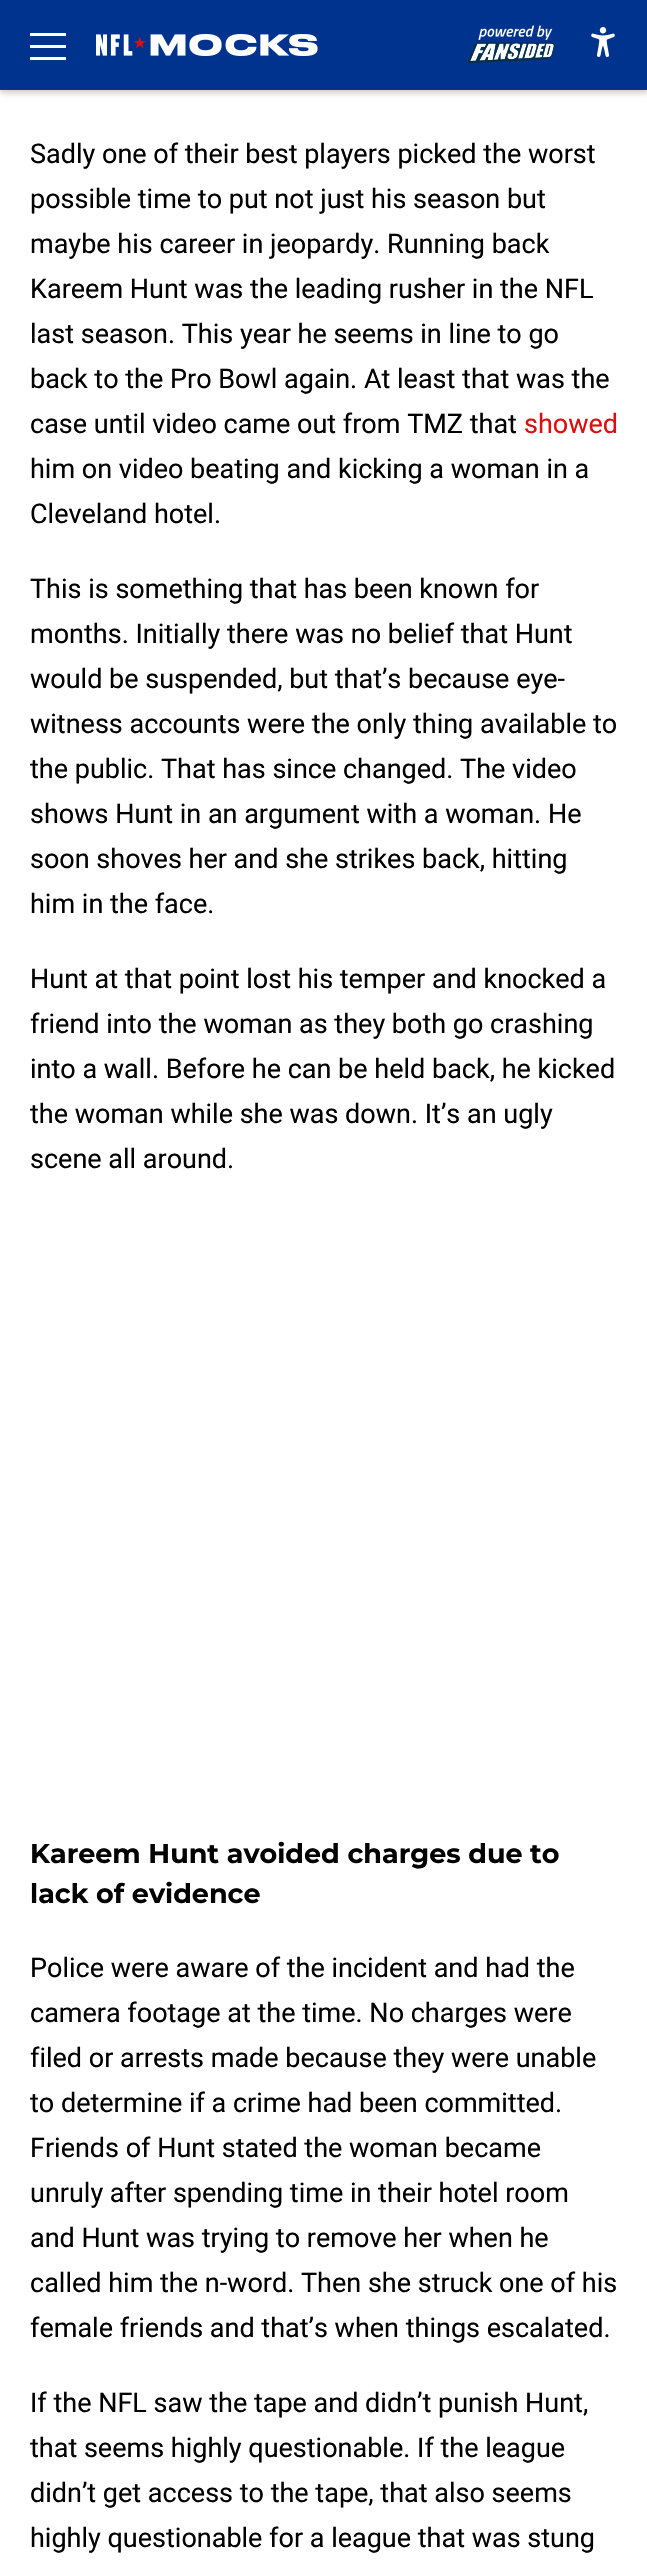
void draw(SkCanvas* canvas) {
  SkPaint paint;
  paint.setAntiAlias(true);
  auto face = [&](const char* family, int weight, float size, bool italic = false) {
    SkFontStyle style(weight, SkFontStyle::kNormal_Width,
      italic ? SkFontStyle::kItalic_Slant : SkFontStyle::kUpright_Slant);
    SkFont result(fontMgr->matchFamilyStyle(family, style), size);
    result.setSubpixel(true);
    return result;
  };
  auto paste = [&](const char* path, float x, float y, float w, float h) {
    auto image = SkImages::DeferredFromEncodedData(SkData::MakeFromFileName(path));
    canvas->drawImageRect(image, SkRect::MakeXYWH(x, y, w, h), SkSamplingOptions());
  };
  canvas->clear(0xffffffff);
  paint.setColor(0x33000000);
  paint.setMaskFilter(SkMaskFilter::MakeBlur(kNormal_SkBlurStyle, 3));
  canvas->drawRect(SkRect::MakeXYWH(0, 3, 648, 90), paint);
  paint.setMaskFilter(nullptr);
  {
    const struct { float x, y, w, h; SkColor color; } items[] = {
      {0, 0, 647, 90, 0xff00338d},
      {30, 33, 36, 3, 0xffffffff},
      {30, 45, 36, 3, 0xffffffff},
      {30, 57, 36, 3, 0xffffffff},
    };
    for (auto [x, y, w, h, color] : items) {
      paint.setColor(color);
      canvas->drawRect(SkRect::MakeXYWH(x, y, w, h), paint);
    }
  }
  paste("img/1.png", 96, 34, 222, 22);
  paste("img/2.png", 466, 25, 89, 39);
  paste("img/3.png", 591, 27, 24, 30);
  auto f0 = face("Roboto", 400, 27);
  paint.setColor(0xff000000);
  {
    const struct { const char* s; float x, y; } items[] = {
      {"Sadly one of their best players picked the worst", 30, 163},
      {"possible time to put not just his season but", 30, 208},
      {"maybe his career in jeopardy. Running back", 30, 253},
      {"Kareem Hunt was the leading rusher in the NFL", 30, 298},
      {"last season. This year he seems in line to go", 30, 343},
      {"back to the Pro Bowl again. At least that was the", 30, 388},
      {"case until video came out from TMZ that", 30, 433},
    };
    for (auto [s, x, y] : items) {
      canvas->drawString(s, x, y, f0, paint);
    }
  }
  paint.setColor(0xffdb0f0f);
  canvas->drawString("showed", 524, 433, f0, paint);
  paint.setColor(0xff000000);
  {
    const struct { const char* s; float x, y; } items[] = {
      {"him on video beating and kicking a woman in a", 30, 478},
      {"Cleveland hotel.", 30, 523},
      {"This is something that has been known for", 30, 598},
      {"months. Initially there was no belief that Hunt", 30, 643},
      {"would be suspended, but that’s because eye-", 30, 688},
      {"witness accounts were the only thing available to", 30, 733},
      {"the public. That has since changed. The video", 30, 778},
      {"shows Hunt in an argument with a woman. He", 30, 823},
      {"soon shoves her and she strikes back, hitting", 30, 868},
      {"him in the face.", 30, 913},
      {"Hunt at that point lost his temper and knocked a", 30, 988},
      {"friend into the woman as they both go crashing", 30, 1033},
      {"into a wall. Before he can be held back, he kicked", 30, 1078},
      {"the woman while she was down. It’s an ugly", 30, 1123},
      {"scene all around.", 30, 1168},
    };
    for (auto [s, x, y] : items) {
      canvas->drawString(s, x, y, f0, paint);
    }
  }
  auto f1 = face("Montserrat", 100, 27);
  canvas->drawString("Kareem Hunt avoided charges due to", 30, 1863, f1, paint);
  canvas->drawString("lack of evidence", 30, 1903, f1, paint);
  {
    const struct { const char* s; float x, y; } items[] = {
      {"Police were aware of the incident and had the", 30, 1977},
      {"camera footage at the time. No charges were", 30, 2022},
      {"filed or arrests made because they were unable", 30, 2067},
      {"to determine if a crime had been committed.", 30, 2112},
      {"Friends of Hunt stated the woman became", 30, 2157},
      {"unruly after spending time in their hotel room", 30, 2202},
      {"and Hunt was trying to remove her when he", 30, 2247},
      {"called him the n-word. Then she struck one of his", 30, 2292},
      {"female friends and that’s when things escalated.", 30, 2337},
      {"If the NFL saw the tape and didn’t punish Hunt,", 30, 2412},
      {"that seems highly questionable. If the league", 30, 2457},
      {"didn’t get access to the tape, that also seems", 30, 2502},
      {"highly questionable for a league that was stung", 30, 2547},
    };
    for (auto [s, x, y] : items) {
      canvas->drawString(s, x, y, f0, paint);
    }
  }
}
